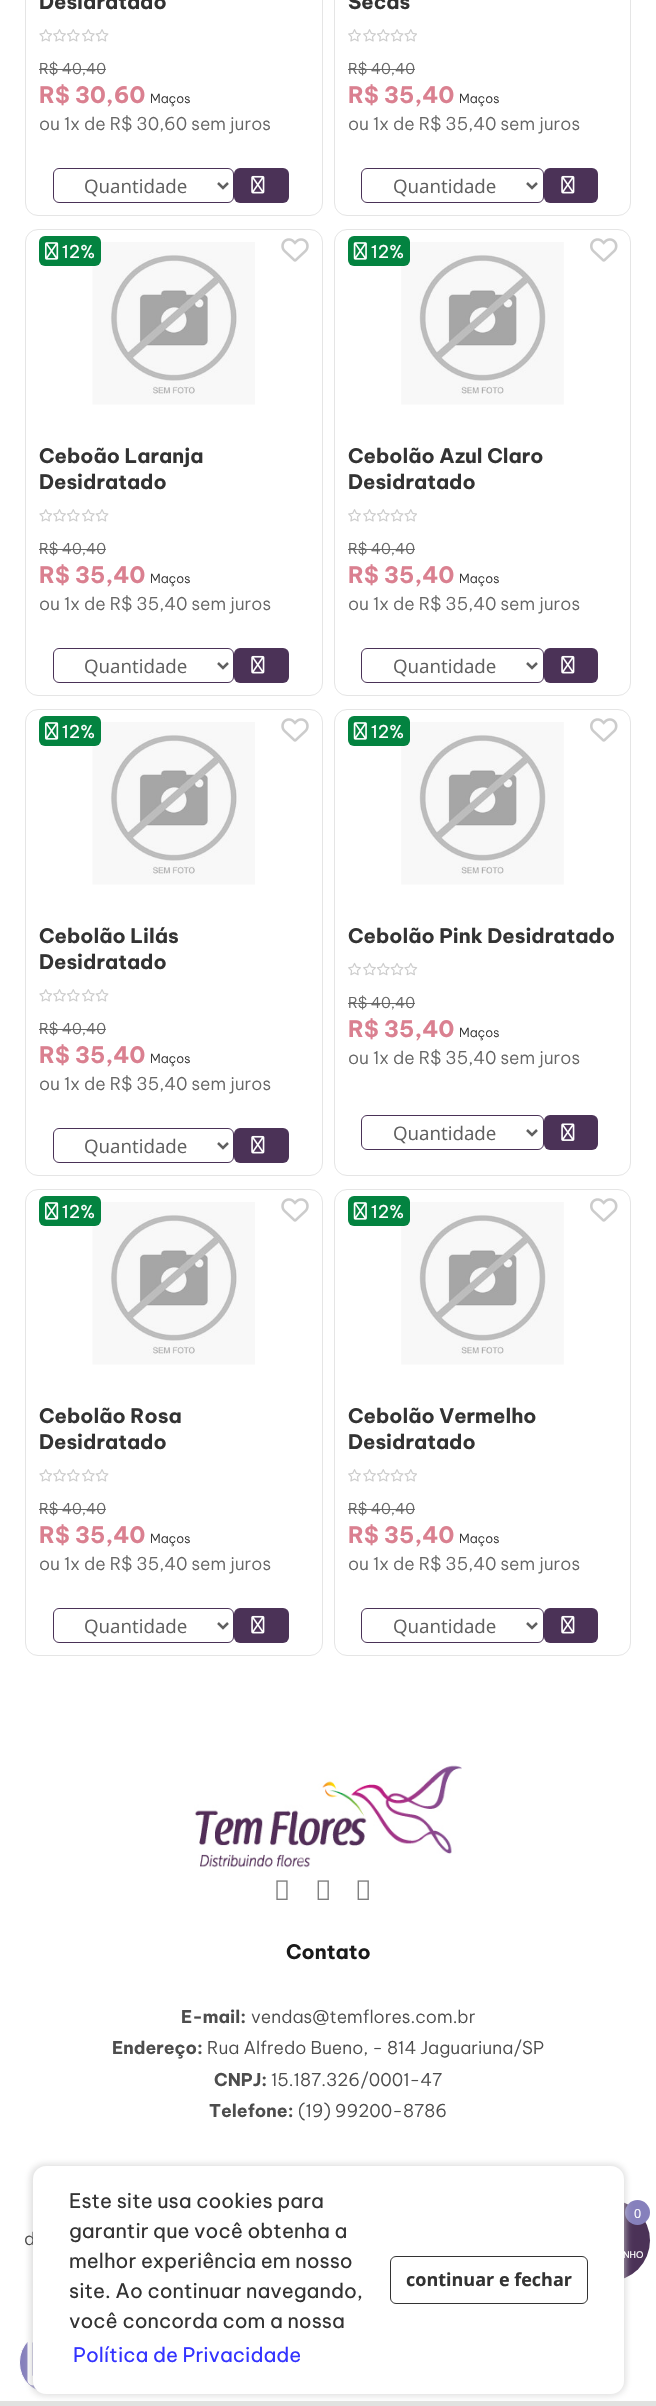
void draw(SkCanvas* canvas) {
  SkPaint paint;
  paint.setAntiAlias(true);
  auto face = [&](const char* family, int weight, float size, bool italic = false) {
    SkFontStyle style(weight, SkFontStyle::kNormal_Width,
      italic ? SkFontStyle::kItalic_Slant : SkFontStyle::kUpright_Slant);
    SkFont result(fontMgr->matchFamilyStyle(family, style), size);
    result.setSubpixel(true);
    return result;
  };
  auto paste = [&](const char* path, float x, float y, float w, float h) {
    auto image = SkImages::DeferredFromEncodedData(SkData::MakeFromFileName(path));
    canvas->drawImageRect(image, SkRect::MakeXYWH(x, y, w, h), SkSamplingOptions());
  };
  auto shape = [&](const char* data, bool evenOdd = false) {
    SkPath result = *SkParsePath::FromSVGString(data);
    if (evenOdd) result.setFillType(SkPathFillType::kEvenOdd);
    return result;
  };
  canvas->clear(0xffffffff);
  paint.setStroke(true);
  paint.setStrokeWidth(1);
  paint.setColor(0xffe5e5e5);
  canvas->drawRoundRect(SkRect::MakeXYWH(25.5f, -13.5f, 297, 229), 12.5f, 12.5f, paint);
  paste("img/1.png", 39, 29, 13, 13);
  paste("img/2.png", 53, 29, 13, 13);
  paste("img/3.png", 67, 29, 13, 13);
  paste("img/3.png", 82, 29, 13, 13);
  paste("img/4.png", 95, 29, 14, 13);
  paint.setStroke(false);
  paint.setColor(0xff666666);
  canvas->drawRect(SkRect::MakeXYWH(39, 69, 67, 1), paint);
  paint.setStroke(true);
  paint.setColor(0xff4a3257);
  canvas->drawRoundRect(SkRect::MakeXYWH(53.5f, 168.5f, 180, 34), 5.5f, 5.5f, paint);
  paint.setStrokeWidth(2.5f);
  paint.setColor(0xff606060);
  canvas->drawPath(shape("M218 183L223 188L228 183"), paint);
  paint.setStroke(false);
  paint.setColor(0xff4b3257);
  canvas->drawRoundRect(SkRect::MakeXYWH(234, 168, 55, 35), 6, 6, paint);
  paste("img/5.png", 251, 175, 14, 19);
  paint.setStroke(true);
  paint.setStrokeWidth(1);
  paint.setColor(0xffe5e5e5);
  canvas->drawRoundRect(SkRect::MakeXYWH(334.5f, -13.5f, 296, 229), 12.5f, 12.5f, paint);
  paste("img/2.png", 348, 29, 13, 13);
  paste("img/2.png", 363, 29, 13, 13);
  paste("img/3.png", 377, 29, 13, 13);
  paste("img/4.png", 390, 29, 14, 13);
  paste("img/1.png", 404, 29, 13, 13);
  paint.setStroke(false);
  paint.setColor(0xff666666);
  canvas->drawRect(SkRect::MakeXYWH(348, 69, 67, 1), paint);
  paint.setStroke(true);
  paint.setColor(0xff4a3257);
  canvas->drawRoundRect(SkRect::MakeXYWH(361.5f, 168.5f, 182, 34), 5.5f, 5.5f, paint);
  paint.setStrokeWidth(2.5f);
  paint.setColor(0xff606060);
  canvas->drawPath(shape("M527 183L532 188L537 183"), paint);
  paint.setStroke(false);
  paint.setColor(0xff4b3257);
  canvas->drawRoundRect(SkRect::MakeXYWH(544, 168, 54, 35), 6, 6, paint);
  paste("img/5.png", 561, 175, 14, 19);
  paint.setStroke(true);
  paint.setStrokeWidth(1);
  paint.setColor(0xffe5e5e5);
  canvas->drawRoundRect(SkRect::MakeXYWH(25.5f, 229.5f, 297, 466), 12.5f, 12.5f, paint);
  paste("img/7.png", 92, 242, 163, 163);
  paint.setStroke(false);
  paint.setColor(0xff038340);
  canvas->drawRoundRect(SkRect::MakeXYWH(39, 236, 62, 30), 6, 6, paint);
  paste("img/6.png", 45, 242, 14, 18);
  paste("img/1.png", 39, 509, 13, 13);
  paste("img/2.png", 53, 509, 13, 13);
  paste("img/3.png", 67, 509, 13, 13);
  paste("img/3.png", 82, 509, 13, 13);
  paste("img/4.png", 95, 509, 14, 13);
  paint.setColor(0xff666666);
  canvas->drawRect(SkRect::MakeXYWH(39, 549, 67, 1), paint);
  paste("img/8.png", 281, 238, 28, 24);
  paint.setStroke(true);
  paint.setColor(0xff4a3257);
  canvas->drawRoundRect(SkRect::MakeXYWH(53.5f, 648.5f, 180, 34), 5.5f, 5.5f, paint);
  paint.setStrokeWidth(2.5f);
  paint.setColor(0xff606060);
  canvas->drawPath(shape("M218 663L223 668L228 663"), paint);
  paint.setStroke(false);
  paint.setColor(0xff4b3257);
  canvas->drawRoundRect(SkRect::MakeXYWH(234, 648, 55, 35), 6, 6, paint);
  paste("img/5.png", 251, 655, 14, 19);
  paint.setStroke(true);
  paint.setStrokeWidth(1);
  paint.setColor(0xffe5e5e5);
  canvas->drawRoundRect(SkRect::MakeXYWH(334.5f, 229.5f, 296, 466), 12.5f, 12.5f, paint);
  paste("img/10.png", 401, 242, 163, 163);
  paint.setStroke(false);
  paint.setColor(0xff038340);
  canvas->drawRoundRect(SkRect::MakeXYWH(348, 236, 62, 30), 6, 6, paint);
  paste("img/9.png", 353, 242, 14, 18);
  paste("img/2.png", 348, 509, 13, 13);
  paste("img/2.png", 363, 509, 13, 13);
  paste("img/3.png", 377, 509, 13, 13);
  paste("img/4.png", 390, 509, 14, 13);
  paste("img/1.png", 404, 509, 13, 13);
  paint.setColor(0xff666666);
  canvas->drawRect(SkRect::MakeXYWH(348, 549, 67, 1), paint);
  paste("img/11.png", 590, 238, 28, 24);
  paint.setStroke(true);
  paint.setColor(0xff4a3257);
  canvas->drawRoundRect(SkRect::MakeXYWH(361.5f, 648.5f, 182, 34), 5.5f, 5.5f, paint);
  paint.setStrokeWidth(2.5f);
  paint.setColor(0xff606060);
  canvas->drawPath(shape("M527 663L532 668L537 663"), paint);
  paint.setStroke(false);
  paint.setColor(0xff4b3257);
  canvas->drawRoundRect(SkRect::MakeXYWH(544, 648, 54, 35), 6, 6, paint);
  paste("img/5.png", 561, 655, 14, 19);
  paint.setStroke(true);
  paint.setStrokeWidth(1);
  paint.setColor(0xffe5e5e5);
  canvas->drawRoundRect(SkRect::MakeXYWH(25.5f, 709.5f, 297, 466), 12.5f, 12.5f, paint);
  paste("img/7.png", 92, 722, 163, 163);
  paint.setStroke(false);
  paint.setColor(0xff038340);
  canvas->drawRoundRect(SkRect::MakeXYWH(39, 716, 62, 30), 6, 6, paint);
  paste("img/6.png", 45, 722, 14, 18);
  paste("img/1.png", 39, 989, 13, 13);
  paste("img/2.png", 53, 989, 13, 13);
  paste("img/3.png", 67, 989, 13, 13);
  paste("img/3.png", 82, 989, 13, 13);
  paste("img/4.png", 95, 989, 14, 13);
  paint.setColor(0xff666666);
  canvas->drawRect(SkRect::MakeXYWH(39, 1029, 67, 1), paint);
  paste("img/8.png", 281, 718, 28, 24);
  paint.setStroke(true);
  paint.setColor(0xff4a3257);
  canvas->drawRoundRect(SkRect::MakeXYWH(53.5f, 1128.5f, 180, 34), 5.5f, 5.5f, paint);
  paint.setStrokeWidth(2.5f);
  paint.setColor(0xff606060);
  canvas->drawPath(shape("M218 1143L223 1148L228 1143"), paint);
  paint.setStroke(false);
  paint.setColor(0xff4b3257);
  canvas->drawRoundRect(SkRect::MakeXYWH(234, 1128, 55, 35), 6, 6, paint);
  paste("img/5.png", 251, 1135, 14, 19);
  paint.setStroke(true);
  paint.setStrokeWidth(1);
  paint.setColor(0xffe5e5e5);
  canvas->drawRoundRect(SkRect::MakeXYWH(334.5f, 709.5f, 296, 466), 12.5f, 12.5f, paint);
  paste("img/11.png", 590, 718, 28, 24);
  paste("img/10.png", 401, 722, 163, 163);
  paint.setStroke(false);
  paint.setColor(0xff038340);
  canvas->drawRoundRect(SkRect::MakeXYWH(348, 716, 62, 30), 6, 6, paint);
  paste("img/9.png", 353, 722, 14, 18);
  paste("img/12.png", 348, 962, 13, 14);
  paste("img/12.png", 363, 962, 13, 14);
  paste("img/13.png", 377, 962, 13, 14);
  paste("img/14.png", 390, 963, 14, 13);
  paste("img/15.png", 404, 962, 14, 14);
  paint.setColor(0xff666666);
  canvas->drawRect(SkRect::MakeXYWH(348, 1003, 67, 1), paint);
  paint.setStroke(true);
  paint.setColor(0xff4a3257);
  canvas->drawRoundRect(SkRect::MakeXYWH(361.5f, 1115.5f, 182, 34), 5.5f, 5.5f, paint);
  paint.setStrokeWidth(2.5f);
  paint.setColor(0xff606060);
  canvas->drawPath(shape("M527 1130L532 1135L537 1130"), paint);
  paint.setStroke(false);
  paint.setColor(0xff4b3257);
  canvas->drawRoundRect(SkRect::MakeXYWH(544, 1115, 54, 35), 6, 6, paint);
  paste("img/16.png", 561, 1123, 14, 18);
  paint.setStroke(true);
  paint.setStrokeWidth(1);
  paint.setColor(0xffe5e5e5);
  canvas->drawRoundRect(SkRect::MakeXYWH(25.5f, 1189.5f, 297, 466), 12.5f, 12.5f, paint);
  paste("img/7.png", 92, 1202, 163, 163);
  paint.setStroke(false);
  paint.setColor(0xff038340);
  canvas->drawRoundRect(SkRect::MakeXYWH(39, 1196, 62, 30), 6, 6, paint);
  paste("img/6.png", 45, 1202, 14, 18);
  paste("img/1.png", 39, 1469, 13, 13);
  paste("img/2.png", 53, 1469, 13, 13);
  paste("img/3.png", 67, 1469, 13, 13);
  paste("img/3.png", 82, 1469, 13, 13);
  paste("img/4.png", 95, 1469, 14, 13);
  paint.setColor(0xff666666);
  canvas->drawRect(SkRect::MakeXYWH(39, 1509, 67, 1), paint);
  paste("img/8.png", 281, 1198, 28, 24);
  paint.setStroke(true);
  paint.setColor(0xff4a3257);
  canvas->drawRoundRect(SkRect::MakeXYWH(53.5f, 1608.5f, 180, 34), 5.5f, 5.5f, paint);
  paint.setStrokeWidth(2.5f);
  paint.setColor(0xff606060);
  canvas->drawPath(shape("M218 1623L223 1628L228 1623"), paint);
  paint.setStroke(false);
  paint.setColor(0xff4b3257);
  canvas->drawRoundRect(SkRect::MakeXYWH(234, 1608, 55, 35), 6, 6, paint);
  paste("img/5.png", 251, 1615, 14, 19);
  paint.setStroke(true);
  paint.setStrokeWidth(1);
  paint.setColor(0xffe5e5e5);
  canvas->drawRoundRect(SkRect::MakeXYWH(334.5f, 1189.5f, 296, 466), 12.5f, 12.5f, paint);
  paste("img/10.png", 401, 1202, 163, 163);
  paint.setStroke(false);
  paint.setColor(0xff038340);
  canvas->drawRoundRect(SkRect::MakeXYWH(348, 1196, 62, 30), 6, 6, paint);
  paste("img/9.png", 353, 1202, 14, 18);
  paste("img/2.png", 348, 1469, 13, 13);
  paste("img/2.png", 363, 1469, 13, 13);
  paste("img/3.png", 377, 1469, 13, 13);
  paste("img/4.png", 390, 1469, 14, 13);
  paste("img/1.png", 404, 1469, 13, 13);
  paint.setColor(0xff666666);
  canvas->drawRect(SkRect::MakeXYWH(348, 1509, 67, 1), paint);
  paste("img/11.png", 590, 1198, 28, 24);
  paint.setStroke(true);
  paint.setColor(0xff4a3257);
  canvas->drawRoundRect(SkRect::MakeXYWH(361.5f, 1608.5f, 182, 34), 5.5f, 5.5f, paint);
  paint.setStrokeWidth(2.5f);
  paint.setColor(0xff606060);
  canvas->drawPath(shape("M527 1623L532 1628L537 1623"), paint);
  paint.setStroke(false);
  paint.setColor(0xff4b3257);
  canvas->drawRoundRect(SkRect::MakeXYWH(544, 1608, 54, 35), 6, 6, paint);
  paste("img/5.png", 561, 1615, 14, 19);
  paste("img/17.png", 194, 1765, 268, 103);
  paste("img/18.png", 276, 1880, 12, 20);
  paste("img/19.png", 317, 1880, 12, 20);
  paste("img/19.png", 357, 1880, 12, 20);
  canvas->drawCircle(609.5f, 2240.5f, 40.5f, paint);
  paint.setColor(0xff8680bc);
  canvas->drawCircle(637.5f, 2212.5f, 12.5f, paint);
  paint.setColor(0xffe1e2e0);
  canvas->drawRect(SkRect::MakeXYWH(0, 2401, 656, 5), paint);
  paint.setColor(0xff8680bc);
  canvas->drawRoundRect(SkRect::MakeXYWH(19.5f, 2331.5f, 61, 62), 30.5f, 30.5f, paint);
  paint.setStroke(true);
  paint.setStrokeWidth(1);
  paint.setColor(0xffffffff);
  canvas->drawRoundRect(SkRect::MakeXYWH(19.5f, 2331.5f, 61, 62), 30.5f, 30.5f, paint);
  paste("img/20.png", 27, 2332, 7, 54);
  paint.setStroke(false);
  paint.setColor(0xa1cccccc);
  paint.setMaskFilter(SkMaskFilter::MakeBlur(kNormal_SkBlurStyle, 3));
  canvas->drawRoundRect(SkRect::MakeXYWH(30, 2164, 596, 232), 15, 15, paint);
  paint.setMaskFilter(nullptr);
  auto f0 = face("Be Vietnam Pro", 700, 20);
  paint.setColor(0xff333333);
  canvas->drawString("Desidratado", 39, 9, f0, paint);
  auto f1 = face("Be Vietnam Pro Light", 300, 15);
  paint.setColor(0xff666666);
  canvas->drawString("R$ 40,40", 39, 74, f1, paint);
  auto f2 = face("Be Vietnam Pro", 700, 22.5f);
  paint.setColor(0xffda8090);
  canvas->drawString("R$ 30,60", 39, 103, f2, paint);
  auto f3 = face("Be Vietnam Pro Light", 300, 12.5f);
  paint.setColor(0xff333333);
  canvas->drawString("Maços", 150, 103, f3, paint);
  auto f4 = face("Be Vietnam Pro Light", 300, 17.5f);
  paint.setColor(0xff666666);
  canvas->drawString("ou 1x de R$ 30,60 sem juros", 39, 130, f4, paint);
  auto f5 = face("Open Sans", 400, 18.75f);
  paint.setColor(0xff606060);
  canvas->drawString("Quantidade", 84, 193, f5, paint);
  paint.setColor(0xff333333);
  canvas->drawString("Secas", 348, 9, f0, paint);
  paint.setColor(0xff666666);
  canvas->drawString("R$ 40,40", 348, 74, f1, paint);
  paint.setColor(0xffda8090);
  canvas->drawString("R$ 35,40", 348, 103, f2, paint);
  paint.setColor(0xff333333);
  canvas->drawString("Maços", 459, 103, f3, paint);
  paint.setColor(0xff666666);
  canvas->drawString("ou 1x de R$ 35,40 sem juros", 348, 130, f4, paint);
  paint.setColor(0xff606060);
  canvas->drawString("Quantidade", 393, 193, f5, paint);
  auto f6 = face("Be Vietnam Pro", 400, 17.5f);
  paint.setColor(0xffffffff);
  canvas->drawString("12%", 62, 258, f6, paint);
  paint.setColor(0xff333333);
  canvas->drawString("Ceboão Laranja", 39, 463, f0, paint);
  canvas->drawString("Desidratado", 39, 489, f0, paint);
  paint.setColor(0xff666666);
  canvas->drawString("R$ 40,40", 39, 554, f1, paint);
  paint.setColor(0xffda8090);
  canvas->drawString("R$ 35,40", 39, 583, f2, paint);
  paint.setColor(0xff333333);
  canvas->drawString("Maços", 150, 583, f3, paint);
  paint.setColor(0xff666666);
  canvas->drawString("ou 1x de R$ 35,40 sem juros", 39, 610, f4, paint);
  paint.setColor(0xff606060);
  canvas->drawString("Quantidade", 84, 673, f5, paint);
  paint.setColor(0xffffffff);
  canvas->drawString("12%", 371, 258, f6, paint);
  paint.setColor(0xff333333);
  canvas->drawString("Cebolão Azul Claro", 348, 463, f0, paint);
  canvas->drawString("Desidratado", 348, 489, f0, paint);
  paint.setColor(0xff666666);
  canvas->drawString("R$ 40,40", 348, 554, f1, paint);
  paint.setColor(0xffda8090);
  canvas->drawString("R$ 35,40", 348, 583, f2, paint);
  paint.setColor(0xff333333);
  canvas->drawString("Maços", 459, 583, f3, paint);
  paint.setColor(0xff666666);
  canvas->drawString("ou 1x de R$ 35,40 sem juros", 348, 610, f4, paint);
  paint.setColor(0xff606060);
  canvas->drawString("Quantidade", 393, 673, f5, paint);
  paint.setColor(0xffffffff);
  canvas->drawString("12%", 62, 738, f6, paint);
  paint.setColor(0xff333333);
  canvas->drawString("Cebolão Lilás", 39, 943, f0, paint);
  canvas->drawString("Desidratado", 39, 969, f0, paint);
  paint.setColor(0xff666666);
  canvas->drawString("R$ 40,40", 39, 1034, f1, paint);
  paint.setColor(0xffda8090);
  canvas->drawString("R$ 35,40", 39, 1063, f2, paint);
  paint.setColor(0xff333333);
  canvas->drawString("Maços", 150, 1063, f3, paint);
  paint.setColor(0xff666666);
  canvas->drawString("ou 1x de R$ 35,40 sem juros", 39, 1090, f4, paint);
  paint.setColor(0xff606060);
  canvas->drawString("Quantidade", 84, 1153, f5, paint);
  paint.setColor(0xffffffff);
  canvas->drawString("12%", 371, 738, f6, paint);
  paint.setColor(0xff333333);
  canvas->drawString("Cebolão Pink Desidratado", 348, 943, f0, paint);
  paint.setColor(0xff666666);
  canvas->drawString("R$ 40,40", 348, 1008, f1, paint);
  paint.setColor(0xffda8090);
  canvas->drawString("R$ 35,40", 348, 1037, f2, paint);
  paint.setColor(0xff333333);
  canvas->drawString("Maços", 459, 1037, f3, paint);
  paint.setColor(0xff666666);
  canvas->drawString("ou 1x de R$ 35,40 sem juros", 348, 1064, f4, paint);
  paint.setColor(0xff606060);
  canvas->drawString("Quantidade", 393, 1140, f5, paint);
  paint.setColor(0xffffffff);
  canvas->drawString("12%", 62, 1218, f6, paint);
  paint.setColor(0xff333333);
  canvas->drawString("Cebolão Rosa", 39, 1423, f0, paint);
  canvas->drawString("Desidratado", 39, 1449, f0, paint);
  paint.setColor(0xff666666);
  canvas->drawString("R$ 40,40", 39, 1514, f1, paint);
  paint.setColor(0xffda8090);
  canvas->drawString("R$ 35,40", 39, 1543, f2, paint);
  paint.setColor(0xff333333);
  canvas->drawString("Maços", 150, 1543, f3, paint);
  paint.setColor(0xff666666);
  canvas->drawString("ou 1x de R$ 35,40 sem juros", 39, 1570, f4, paint);
  paint.setColor(0xff606060);
  canvas->drawString("Quantidade", 84, 1633, f5, paint);
  paint.setColor(0xffffffff);
  canvas->drawString("12%", 371, 1218, f6, paint);
  paint.setColor(0xff333333);
  canvas->drawString("Cebolão Vermelho", 348, 1423, f0, paint);
  canvas->drawString("Desidratado", 348, 1449, f0, paint);
  paint.setColor(0xff666666);
  canvas->drawString("R$ 40,40", 348, 1514, f1, paint);
  paint.setColor(0xffda8090);
  canvas->drawString("R$ 35,40", 348, 1543, f2, paint);
  paint.setColor(0xff333333);
  canvas->drawString("Maços", 459, 1543, f3, paint);
  paint.setColor(0xff666666);
  canvas->drawString("ou 1x de R$ 35,40 sem juros", 348, 1570, f4, paint);
  paint.setColor(0xff606060);
  canvas->drawString("Quantidade", 393, 1633, f5, paint);
  paint.setColor(0xff1a1a1a);
  canvas->drawString("Contato", 286, 1959, f0, paint);
  auto f7 = face("Be Vietnam Pro", 700, 17.5f);
  paint.setColor(0xff4d4d4d);
  canvas->drawString("E-mail:", 181, 2023, f7, paint);
  canvas->drawString("vendas@temflores.com.br", 251, 2023, f4, paint);
  canvas->drawString("Endereço:", 112, 2054, f7, paint);
  canvas->drawString("Rua Alfredo Bueno, - 814 Jaguariuna/SP", 207, 2054, f4, paint);
  canvas->drawString("CNPJ:", 214, 2086, f7, paint);
  canvas->drawString("15.187.326/0001-47", 271, 2086, f4, paint);
  canvas->drawString("Telefone:", 209, 2117, f7, paint);
  canvas->drawString("(19) 99200-8786", 298, 2117, f4, paint);
  canvas->drawString("d", 24, 2245, f4, paint);
  auto f8 = face("Open Sans", 400, 12.5f);
  paint.setColor(0xffffffff);
  canvas->drawString("0", 634, 2218, f8, paint);
  auto f9 = face("Be Vietnam Pro", 400, 9);
  canvas->drawString("NHO", 623, 2258, f9, paint);
  canvas->drawRoundRect(SkRect::MakeXYWH(33, 2166, 591, 228), 13, 13, paint);
  auto f10 = face("Be Vietnam Pro", 400, 20);
  paint.setColor(0xff333333);
  {
    const struct { const char* s; float x, y; } items[] = {
      {"Este site usa cookies para", 69, 2208},
      {"garantir que você obtenha a", 69, 2238},
      {"melhor experiência em nosso", 69, 2268},
      {"site. Ao continuar navegando,", 69, 2298},
      {"você concorda com a nossa", 69, 2328},
    };
    for (auto [s, x, y] : items) {
      canvas->drawString(s, x, y, f10, paint);
    }
  }
  paint.setColor(0xff3333ff);
  canvas->drawString("Política de Privacidade", 73, 2362, f10, paint);
  paint.setStroke(true);
  paint.setColor(0xff333333);
  canvas->drawRoundRect(SkRect::MakeXYWH(390.5f, 2256.5f, 197, 47), 5.5f, 5.5f, paint);
  auto f11 = face("Open Sans", 700, 18);
  paint.setStroke(false);
  canvas->drawString("continuar e fechar", 406, 2286, f11, paint);
}
